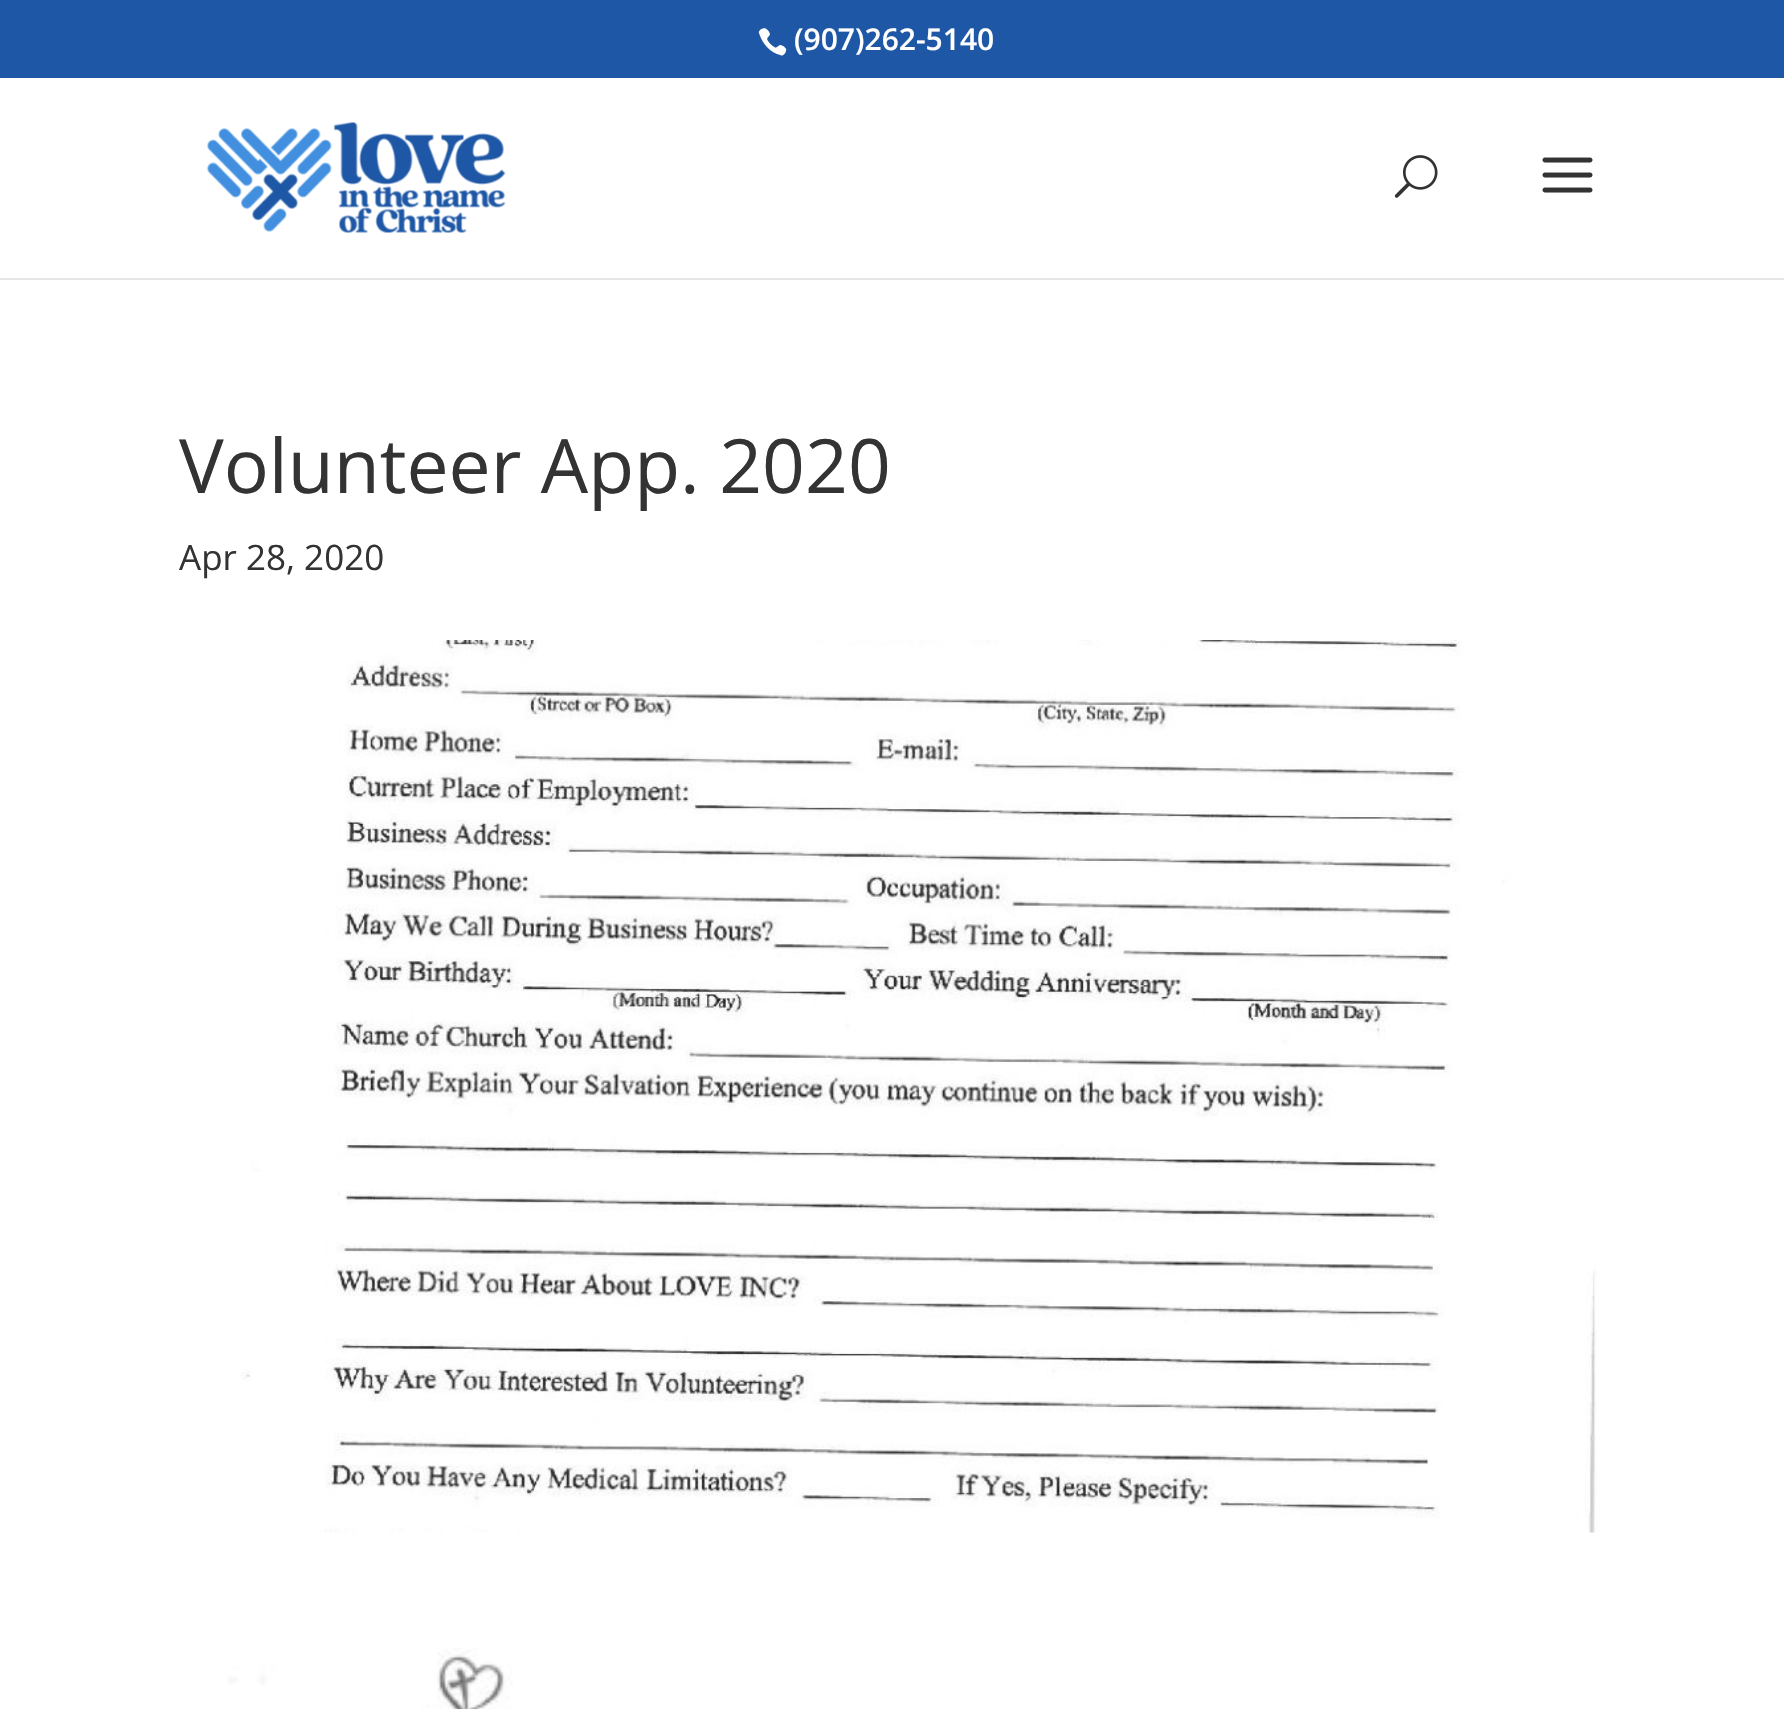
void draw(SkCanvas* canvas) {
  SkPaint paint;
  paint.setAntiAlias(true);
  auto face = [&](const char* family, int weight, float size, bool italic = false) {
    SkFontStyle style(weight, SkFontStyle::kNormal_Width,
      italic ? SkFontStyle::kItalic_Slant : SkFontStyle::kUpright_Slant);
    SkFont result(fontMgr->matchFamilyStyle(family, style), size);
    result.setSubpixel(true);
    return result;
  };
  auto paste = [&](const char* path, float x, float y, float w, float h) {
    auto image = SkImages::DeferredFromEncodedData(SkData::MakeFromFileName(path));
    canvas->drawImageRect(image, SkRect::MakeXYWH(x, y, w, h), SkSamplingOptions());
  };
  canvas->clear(0xffffffff);
  paint.setColor(0xff1d57a5);
  canvas->drawRect(SkRect::MakeXYWH(0, 0, 1784, 78), paint);
  paste("img/1.png", 758, 28, 29, 28);
  paint.setColor(0xffe6e6e6);
  canvas->drawRect(SkRect::MakeXYWH(0, 278, 1784, 2), paint);
  paste("img/2.png", 207, 122, 299, 111);
  paste("img/3.png", 1394, 155, 44, 43);
  paste("img/4.png", 1542, 157, 51, 36);
  paste("img/5.png", 241, 640, 1356, 893);
  paste("img/6.png", 228, 1648, 285, 61);
  auto f0 = face("Open Sans", 600, 30);
  paint.setColor(0xffffffff);
  canvas->drawString("(907)262-5140", 794, 50, f0, paint);
  auto f1 = face("Open Sans", 400, 75);
  paint.setColor(0xff333333);
  canvas->drawString("Volunteer App. 2020", 179, 493, f1, paint);
  auto f2 = face("Open Sans", 400, 35);
  canvas->drawString("Apr 28, 2020", 179, 570, f2, paint);
}
